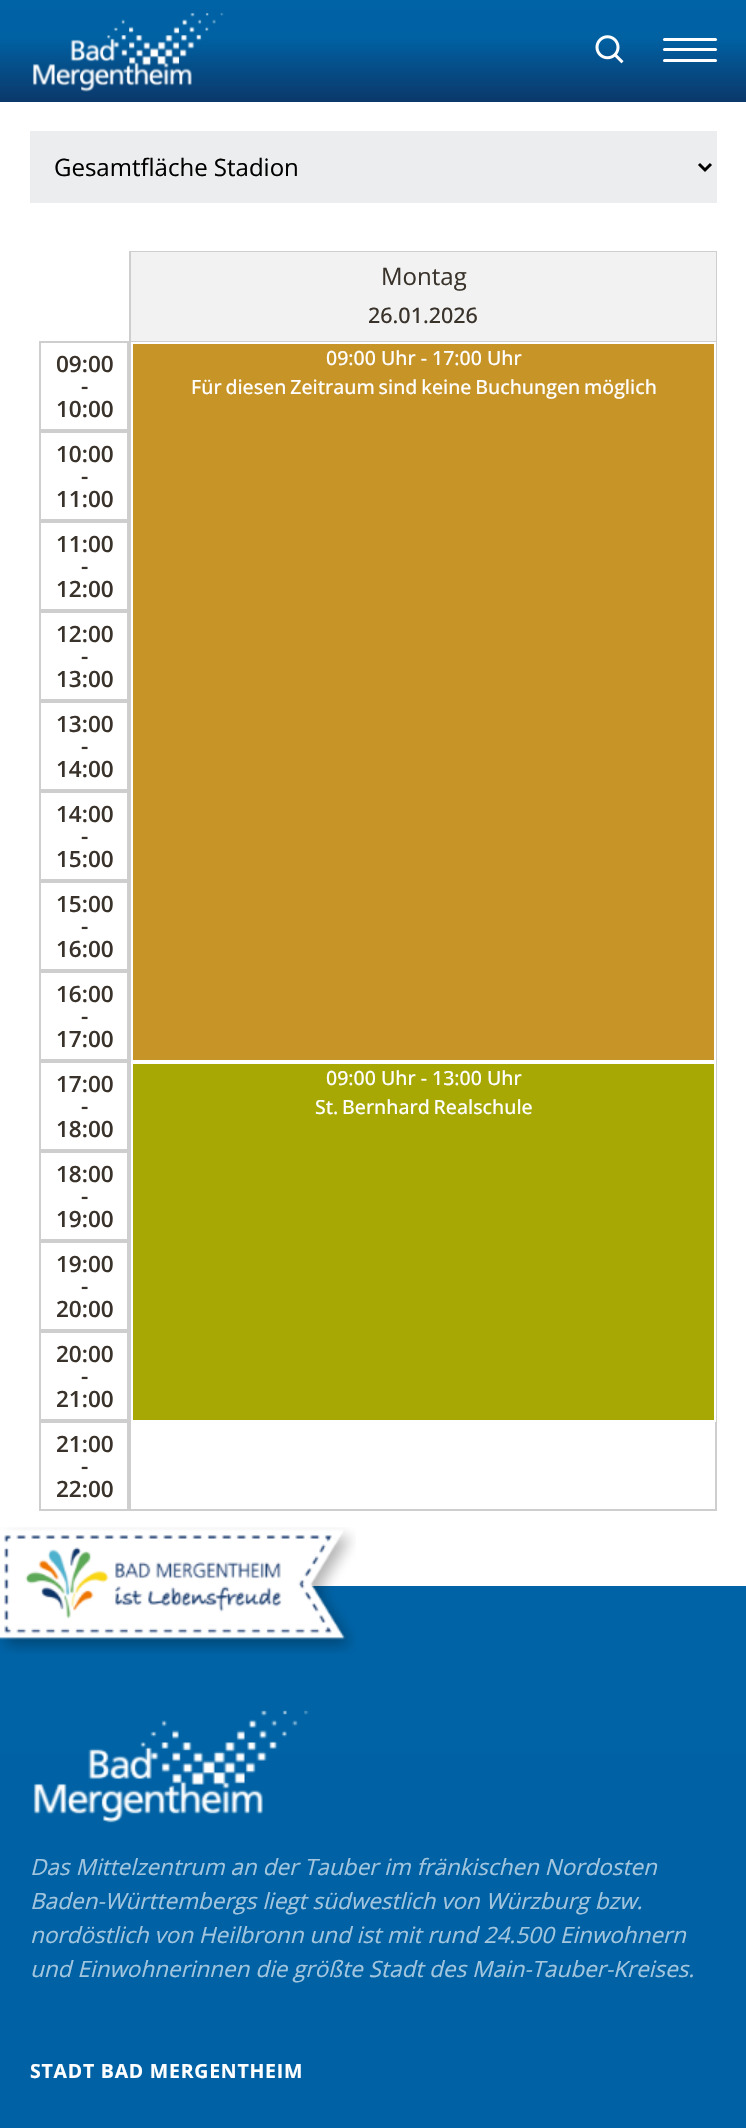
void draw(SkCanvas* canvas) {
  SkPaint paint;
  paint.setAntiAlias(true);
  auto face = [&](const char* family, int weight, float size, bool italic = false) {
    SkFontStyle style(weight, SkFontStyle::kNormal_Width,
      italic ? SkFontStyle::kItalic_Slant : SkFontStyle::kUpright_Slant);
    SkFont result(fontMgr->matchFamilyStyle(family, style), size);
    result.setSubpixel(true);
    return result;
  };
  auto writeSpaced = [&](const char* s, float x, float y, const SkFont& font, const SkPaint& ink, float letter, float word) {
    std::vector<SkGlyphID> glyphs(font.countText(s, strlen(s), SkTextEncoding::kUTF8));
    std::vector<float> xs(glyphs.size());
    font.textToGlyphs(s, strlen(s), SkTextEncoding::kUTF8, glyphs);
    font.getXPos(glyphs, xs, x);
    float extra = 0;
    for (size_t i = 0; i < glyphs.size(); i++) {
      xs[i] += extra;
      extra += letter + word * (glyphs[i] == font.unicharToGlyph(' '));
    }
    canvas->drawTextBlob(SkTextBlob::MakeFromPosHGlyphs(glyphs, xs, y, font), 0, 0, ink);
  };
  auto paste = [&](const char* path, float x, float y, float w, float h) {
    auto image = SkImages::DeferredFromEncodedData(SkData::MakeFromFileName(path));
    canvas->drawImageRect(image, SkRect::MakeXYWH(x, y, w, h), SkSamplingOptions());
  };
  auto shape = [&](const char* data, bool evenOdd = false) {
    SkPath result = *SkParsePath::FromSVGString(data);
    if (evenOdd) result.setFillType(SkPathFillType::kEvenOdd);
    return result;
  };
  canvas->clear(0xffffffff);
  {
    const SkColor colors[] = {0xff0063a6, 0xff0061a3, 0xff0b386a};
    const float stops[] = {0, 0.37f, 1};
    const SkPoint ends[] = {{374, 0}, {374, 102}};
    paint.setShader(SkGradientShader::MakeLinear(ends, colors, stops, 3, SkTileMode::kClamp));
    paint.setAlpha(255);
  }
  canvas->drawRect(SkRect::MakeXYWH(0, 0, 746, 102), paint);
  paste("img/1.png", 32, 13, 192, 79);
  paste("img/2.png", 595, 35, 29, 29);
  paint.setShader(nullptr);
  paint.setColor(0xffffffff);
  canvas->drawRoundRect(SkRect::MakeXYWH(663, 38, 54, 3), 1.5f, 1.5f, paint);
  canvas->drawRoundRect(SkRect::MakeXYWH(663, 48, 54, 3), 1.5f, 1.5f, paint);
  canvas->drawRoundRect(SkRect::MakeXYWH(663, 59, 54, 3), 1.5f, 1.5f, paint);
  paint.setColor(0xffecedee);
  canvas->drawRect(SkRect::MakeXYWH(30, 131, 687, 72), paint);
  paint.setStroke(true);
  paint.setStrokeWidth(3);
  paint.setColor(0xff000000);
  canvas->drawPath(shape("M699 164L705 170L711 164"), paint);
  paint.setStrokeWidth(2);
  paint.setColor(0xffcecece);
  canvas->drawRect(SkRect::MakeXYWH(40, 342, 88, 88), paint);
  canvas->drawRect(SkRect::MakeXYWH(40, 432, 88, 88), paint);
  canvas->drawRect(SkRect::MakeXYWH(40, 522, 88, 88), paint);
  canvas->drawRect(SkRect::MakeXYWH(40, 612, 88, 88), paint);
  canvas->drawRect(SkRect::MakeXYWH(40, 702, 88, 88), paint);
  canvas->drawRect(SkRect::MakeXYWH(40, 792, 88, 88), paint);
  canvas->drawRect(SkRect::MakeXYWH(40, 882, 88, 88), paint);
  canvas->drawRect(SkRect::MakeXYWH(40, 972, 88, 88), paint);
  canvas->drawRect(SkRect::MakeXYWH(40, 1062, 88, 88), paint);
  canvas->drawRect(SkRect::MakeXYWH(40, 1152, 88, 88), paint);
  canvas->drawRect(SkRect::MakeXYWH(40, 1242, 88, 88), paint);
  canvas->drawRect(SkRect::MakeXYWH(40, 1332, 88, 88), paint);
  canvas->drawRect(SkRect::MakeXYWH(40, 1422, 88, 88), paint);
  canvas->drawRect(SkRect::MakeXYWH(130, 252, 586, 1258), paint);
  paint.setStroke(false);
  paint.setColor(0xfff2f2f2);
  canvas->drawRect(SkRect::MakeXYWH(131, 252, 585, 89), paint);
  paint.setColor(0xffcecece);
  canvas->drawRect(SkRect::MakeXYWH(131, 341, 585, 1), paint);
  paint.setColor(0xffc79427);
  canvas->drawRect(SkRect::MakeXYWH(132, 343, 583, 718), paint);
  paint.setStroke(true);
  paint.setColor(0xffffffff);
  canvas->drawRect(SkRect::MakeXYWH(132, 343, 583, 718), paint);
  paint.setStroke(false);
  paint.setColor(0xffa8a804);
  canvas->drawRect(SkRect::MakeXYWH(132, 1063, 583, 358), paint);
  paint.setStroke(true);
  paint.setColor(0xffffffff);
  canvas->drawRect(SkRect::MakeXYWH(132, 1063, 583, 358), paint);
  paint.setStroke(false);
  {
    const SkColor colors[] = {0xff0063a6, 0xff0061a3, 0xff0b386a};
    const float stops[] = {0, 0.37f, 1};
    const SkPoint ends[] = {{373, 1586}, {374, 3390}};
    paint.setShader(SkGradientShader::MakeLinear(ends, colors, stops, 3, SkTileMode::kClamp));
    paint.setAlpha(255);
  }
  canvas->drawRect(SkRect::MakeXYWH(0, 1586, 746, 542), paint);
  paste("img/3.png", 0, 1527, 356, 127);
  paste("img/4.png", 33, 1710, 276, 113);
  auto f0 = face("Open Sans", 400, 24);
  paint.setShader(nullptr);
  paint.setColor(0xff000000);
  canvas->drawString("Gesamtfläche Stadion", 54, 176, f0, paint);
  auto f1 = face("Open Sans", 600, 22.5f);
  paint.setColor(0xff3a332b);
  {
    const struct { const char* s; float x, y; } items[] = {
      {"09:00", 56, 372},
      {"-", 81, 394},
      {"10:00", 56, 417},
      {"10:00", 56, 462},
      {"-", 81, 484},
      {"11:00", 56, 507},
      {"11:00", 56, 552},
      {"-", 81, 574},
      {"12:00", 56, 597},
      {"12:00", 56, 642},
      {"-", 81, 664},
      {"13:00", 56, 687},
      {"13:00", 56, 732},
      {"-", 81, 754},
      {"14:00", 56, 777},
      {"14:00", 56, 822},
      {"-", 81, 844},
      {"15:00", 56, 867},
      {"15:00", 56, 912},
      {"-", 81, 934},
      {"16:00", 56, 957},
      {"16:00", 56, 1002},
      {"-", 81, 1024},
      {"17:00", 56, 1047},
      {"17:00", 56, 1092},
      {"-", 81, 1114},
      {"18:00", 56, 1137},
      {"18:00", 56, 1182},
      {"-", 81, 1204},
      {"19:00", 56, 1227},
      {"19:00", 56, 1272},
      {"-", 81, 1294},
      {"20:00", 56, 1317},
      {"20:00", 56, 1362},
      {"-", 81, 1384},
      {"21:00", 56, 1407},
      {"21:00", 56, 1452},
      {"-", 81, 1474},
      {"22:00", 56, 1497},
    };
    for (auto [s, x, y] : items) {
      canvas->drawString(s, x, y, f1, paint);
    }
  }
  canvas->drawString("Montag", 381, 285, f0, paint);
  auto f2 = face("Open Sans", 500, 21.5f);
  canvas->drawString("26.01.2026", 368, 323, f2, paint);
  auto f3 = face("Open Sans", 500, 19.5f);
  paint.setColor(0xffffffff);
  {
    const struct { const char* s; float x, y; } items[] = {
      {"09:00", 326, 365},
      {"Uhr -", 381, 365},
      {"17:00 Uhr", 432, 365},
    };
    for (auto [s, x, y] : items) {
      canvas->drawString(s, x, y, f3, paint);
    }
  }
  writeSpaced("Für diesen Zeitraum sind keine Buchungen möglich", 191, 394, f3, paint, 0, -1.25f);
  {
    const struct { const char* s; float x, y; } items[] = {
      {"09:00", 326, 1085},
      {"Uhr -", 381, 1085},
      {"13:00 Uhr", 432, 1085},
    };
    for (auto [s, x, y] : items) {
      canvas->drawString(s, x, y, f3, paint);
    }
  }
  writeSpaced("St. Bernhard Realschule", 315, 1114, f3, paint, 0, -1.25f);
  auto f4 = face("Open Sans", 400, 22.5f, true);
  paint.setColor(0xffa3c6de);
  {
    const struct { const char* s; float x, y; } items[] = {
      {"Das Mittelzentrum an der Tauber im fränkischen Nordosten", 30, 1875},
      {"Baden-Württembergs liegt südwestlich von Würzburg bzw.", 30, 1909},
      {"nordöstlich von Heilbronn und ist mit rund 24.500 Einwohnern", 30, 1943},
      {"und Einwohnerinnen die größte Stadt des Main-Tauber-Kreises.", 30, 1977},
    };
    for (auto [s, x, y] : items) {
      canvas->drawString(s, x, y, f4, paint);
    }
  }
  auto f5 = face("Open Sans", 700, 19.5f);
  paint.setColor(0xffffffff);
  writeSpaced("STADT BAD MERGENTHEIM", 30, 2078, f5, paint, 0.75f, 0);
}
